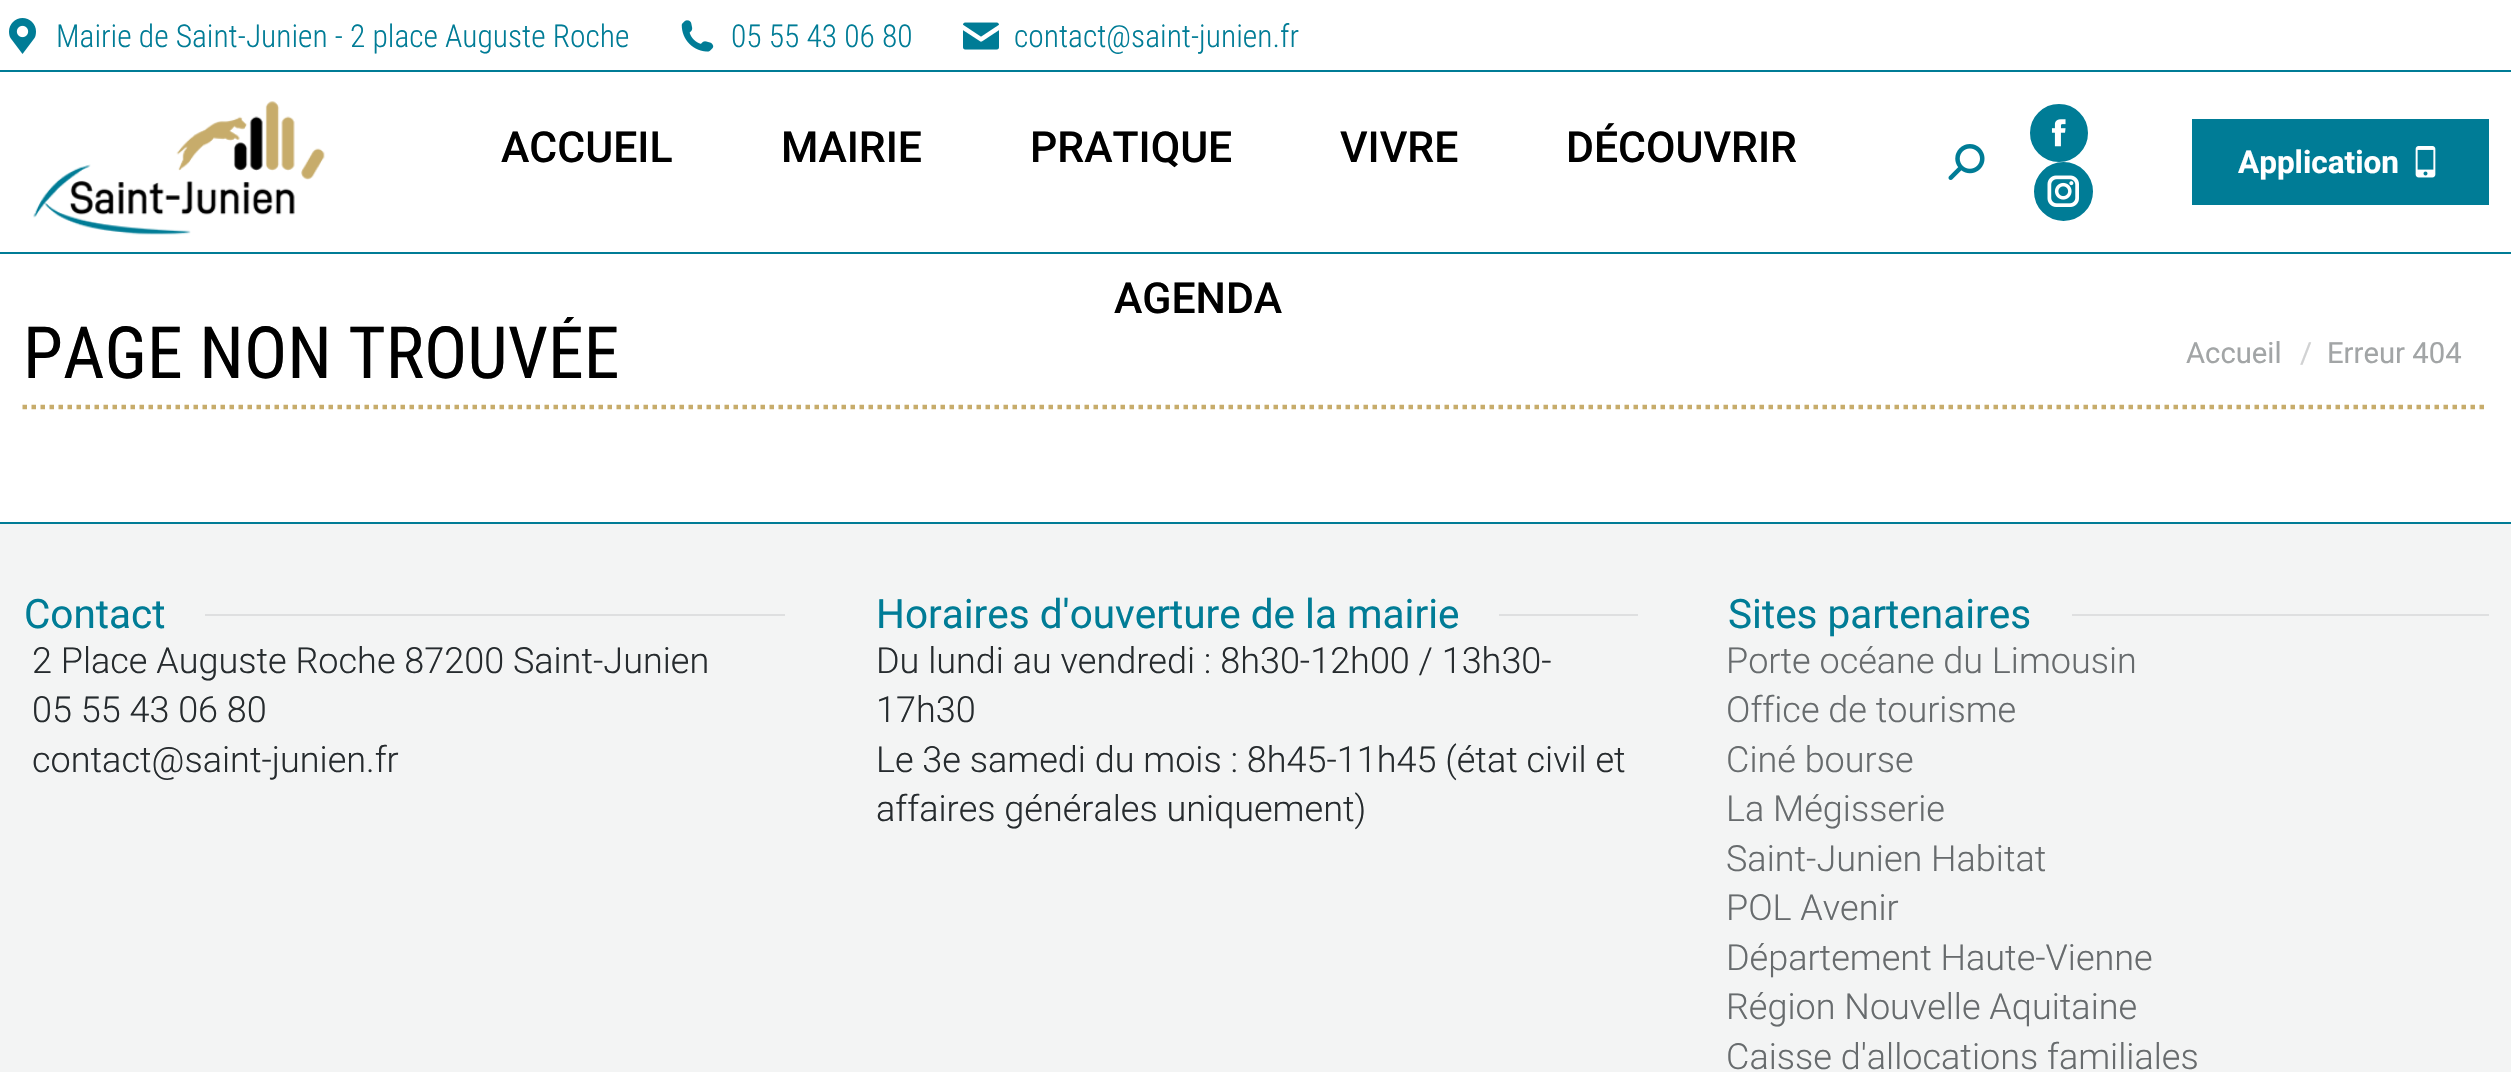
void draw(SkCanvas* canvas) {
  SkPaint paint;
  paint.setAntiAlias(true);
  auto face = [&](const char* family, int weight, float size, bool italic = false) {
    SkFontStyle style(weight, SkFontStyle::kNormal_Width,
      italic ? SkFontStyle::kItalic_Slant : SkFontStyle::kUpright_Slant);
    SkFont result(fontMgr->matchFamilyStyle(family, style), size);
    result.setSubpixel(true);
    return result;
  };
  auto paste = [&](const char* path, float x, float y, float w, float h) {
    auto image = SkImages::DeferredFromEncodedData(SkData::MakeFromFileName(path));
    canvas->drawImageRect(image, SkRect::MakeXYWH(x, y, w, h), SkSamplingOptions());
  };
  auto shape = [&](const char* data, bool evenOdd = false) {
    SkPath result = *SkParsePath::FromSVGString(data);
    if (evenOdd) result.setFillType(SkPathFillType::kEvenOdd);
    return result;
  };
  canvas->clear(0xffffffff);
  paint.setColor(0xff007c96);
  canvas->drawRect(SkRect::MakeXYWH(0, 252, 2511, 2), paint);
  paste("img/1.png", 9, 18, 27, 36);
  paste("img/2.png", 681, 20, 33, 32);
  paste("img/3.png", 963, 22, 36, 28);
  canvas->drawRect(SkRect::MakeXYWH(0, 70, 2511, 2), paint);
  paste("img/4.png", 33, 101, 292, 134);
  paste("img/5.png", 1948, 144, 37, 36);
  canvas->drawCircle(2059, 133, 28, paint);
  paint.setStroke(true);
  paint.setStrokeWidth(2);
  canvas->drawCircle(2059, 133, 28, paint);
  paste("img/6.png", 2051, 119, 15, 28);
  paint.setStroke(false);
  canvas->drawCircle(2063.5f, 191.5f, 28.5f, paint);
  paint.setStroke(true);
  canvas->drawCircle(2063.5f, 191.5f, 28.5f, paint);
  paste("img/7.png", 2047, 175, 32, 32);
  paint.setStroke(false);
  canvas->drawRect(SkRect::MakeXYWH(2192, 119, 297, 86), paint);
  paste("img/8.png", 2415, 146, 21, 32);
  paint.setStroke(true);
  paint.setStrokeWidth(4.5f);
  paint.setColor(0xffc7ac6b);
  paint.setPathEffect(SkDashPathEffect::Make({{4.5f, 4.5f}}, 0));
  canvas->drawPath(shape("M22.5 407H2488.5"), paint);
  paint.setPathEffect(nullptr);
  paint.setStroke(false);
  {
    const struct { float x, y, w, h; SkColor color; } items[] = {
      {0, 524, 2511, 548, 0xfff3f4f4},
      {0, 522, 2511, 2, 0xff007c96},
      {205, 614, 580, 2, 0xffdedfe0},
      {1499, 614, 139, 2, 0xffdedfe0},
      {2072, 614, 417, 2, 0xffdedfe0},
    };
    for (auto [x, y, w, h, color] : items) {
      paint.setColor(color);
      canvas->drawRect(SkRect::MakeXYWH(x, y, w, h), paint);
    }
  }
  auto f0 = face("Roboto Condensed", 300, 31.5f);
  paint.setColor(0xff007c96);
  {
    const struct { const char* s; float x, y; } items[] = {
      {"Mairie de Saint-Junien - 2 place Auguste Roche", 56, 47},
      {"05 55 43 06 80", 731, 47},
      {"contact@saint-junien.fr", 1014, 47},
    };
    for (auto [s, x, y] : items) {
      canvas->drawString(s, x, y, f0, paint);
    }
  }
  auto f1 = face("Roboto", 500, 42.75f);
  paint.setColor(0xff000000);
  {
    const struct { const char* s; float x, y; } items[] = {
      {"ACCUEIL", 501, 162},
      {"MAIRIE", 781, 162},
      {"PRATIQUE", 1030, 162},
      {"VIVRE", 1340, 162},
      {"DÉCOUVRIR", 1566, 162},
      {"AGENDA", 1114, 313},
    };
    for (auto [s, x, y] : items) {
      canvas->drawString(s, x, y, f1, paint);
    }
  }
  auto f2 = face("Roboto", 700, 31.5f);
  paint.setColor(0xffffffff);
  canvas->drawString("Application", 2238, 173, f2, paint);
  canvas->save();
  canvas->clipRect(SkRect::MakeXYWH(23, 317, 596, 72));
  auto f3 = face("Roboto Condensed", 400, 72);
  paint.setColor(0xff000000);
  canvas->drawString("PAGE NON TROUVÉE", 23, 378, f3, paint);
  canvas->restore();
  auto f4 = face("Roboto", 400, 29.25f);
  paint.setColor(0xffa2a5a6);
  canvas->drawString("Accueil", 2186, 363, f4, paint);
  paint.setColor(0xffd1d2d3);
  canvas->drawString("/", 2300, 363, f4, paint);
  paint.setColor(0xffa2a5a6);
  canvas->drawString("Erreur 404", 2327, 363, f4, paint);
  auto f5 = face("Roboto", 400, 40.5f);
  paint.setColor(0xff007c96);
  canvas->drawString("Contact", 24, 628, f5, paint);
  auto f6 = face("Roboto", 300, 36);
  paint.setColor(0xff262b2e);
  {
    const struct { const char* s; float x, y; } items[] = {
      {"2 Place Auguste Roche 87200 Saint-Junien", 32, 673},
      {"05 55 43 06 80", 32, 722},
      {"contact@saint-junien.fr", 32, 772},
    };
    for (auto [s, x, y] : items) {
      canvas->drawString(s, x, y, f6, paint);
    }
  }
  paint.setColor(0xff007c96);
  canvas->drawString("Horaires d'ouverture de la mairie", 876, 628, f5, paint);
  paint.setColor(0xff262b2e);
  {
    const struct { const char* s; float x, y; } items[] = {
      {"Du lundi au vendredi : 8h30-12h00 / 13h30-", 876, 673},
      {"17h30", 876, 722},
      {"Le 3e samedi du mois : 8h45-11h45 (état civil et", 876, 772},
      {"affaires générales uniquement)", 876, 821},
    };
    for (auto [s, x, y] : items) {
      canvas->drawString(s, x, y, f6, paint);
    }
  }
  paint.setColor(0xff007c96);
  canvas->drawString("Sites partenaires", 1728, 628, f5, paint);
  paint.setColor(0xff676b6d);
  {
    const struct { const char* s; float x, y; } items[] = {
      {"Porte océane du Limousin", 1726, 673},
      {"Office de tourisme", 1726, 722},
      {"Ciné bourse", 1726, 772},
      {"La Mégisserie", 1726, 821},
      {"Saint-Junien Habitat", 1726, 871},
      {"POL Avenir", 1726, 920},
      {"Département Haute-Vienne", 1726, 970},
      {"Région Nouvelle Aquitaine", 1726, 1019},
      {"Caisse d'allocations familiales", 1726, 1069},
    };
    for (auto [s, x, y] : items) {
      canvas->drawString(s, x, y, f6, paint);
    }
  }
}
